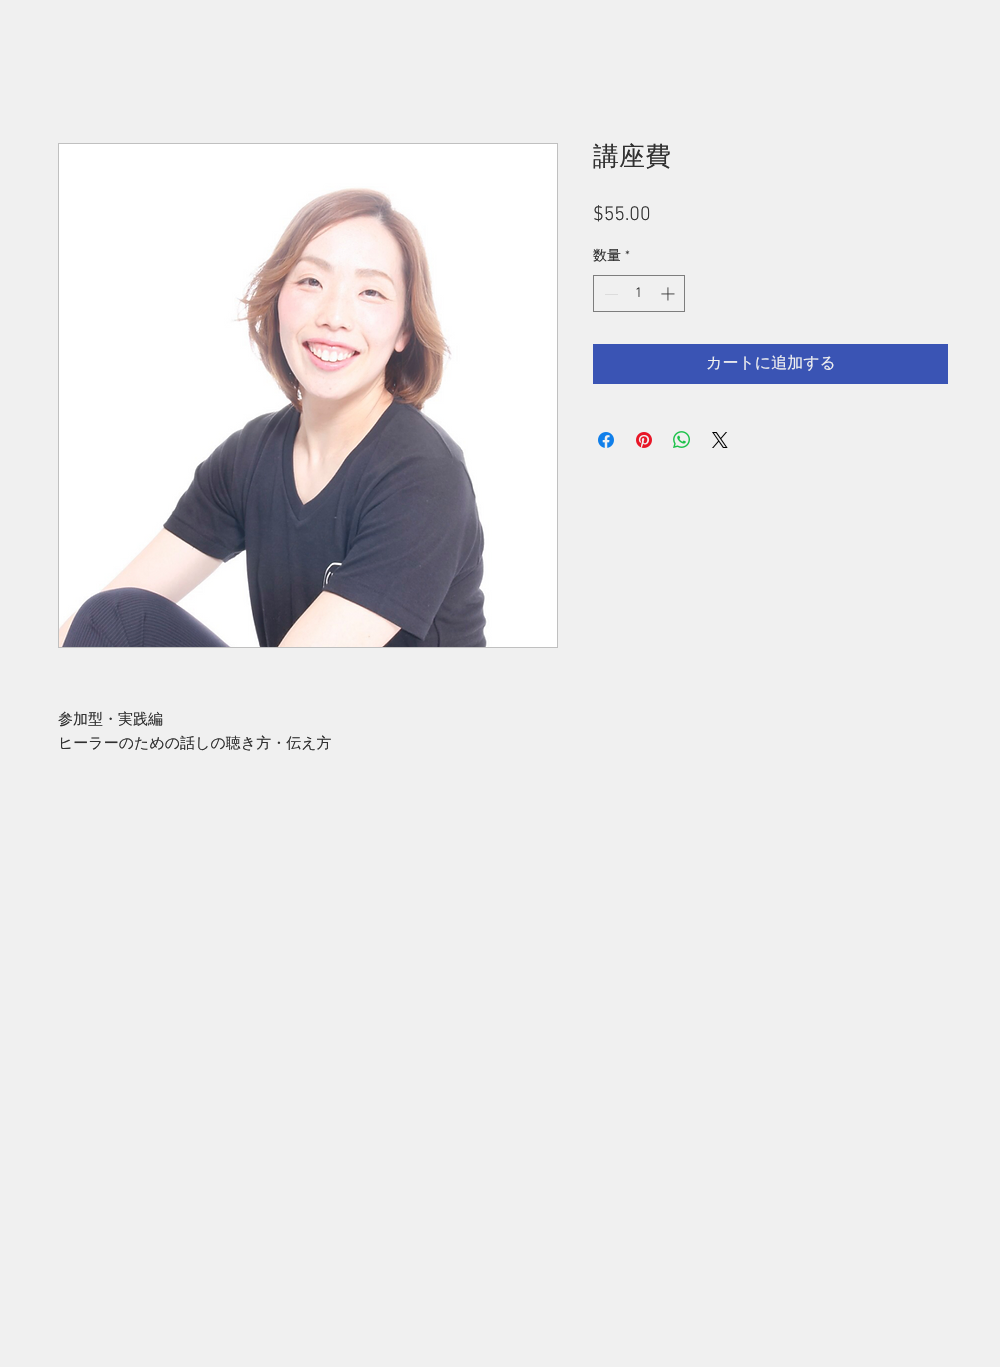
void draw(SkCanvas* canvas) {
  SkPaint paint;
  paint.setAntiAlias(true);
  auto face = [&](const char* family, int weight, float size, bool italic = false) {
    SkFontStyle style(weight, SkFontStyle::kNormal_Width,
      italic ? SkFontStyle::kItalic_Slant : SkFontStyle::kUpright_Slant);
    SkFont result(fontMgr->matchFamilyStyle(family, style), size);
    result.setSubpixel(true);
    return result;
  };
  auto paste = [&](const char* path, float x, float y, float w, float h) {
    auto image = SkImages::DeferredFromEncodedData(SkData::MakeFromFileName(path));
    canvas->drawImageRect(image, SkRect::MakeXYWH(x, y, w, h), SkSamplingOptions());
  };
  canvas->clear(0xfff0f0f0);
  paint.setStroke(true);
  paint.setStrokeWidth(1);
  paint.setColor(0xff7d7d7d);
  canvas->drawRect(SkRect::MakeXYWH(593.5f, 275.5f, 91, 36), paint);
  paint.setStroke(false);
  paint.setColor(0xffdcdcdc);
  canvas->drawRect(SkRect::MakeXYWH(605, 294, 13, 1), paint);
  paste("img/1.png", 661, 287, 14, 14);
  paint.setColor(0xff3a54b4);
  canvas->drawRect(SkRect::MakeXYWH(593, 344, 355, 40), paint);
  paste("img/2.png", 598, 432, 16, 16);
  paste("img/3.png", 636, 432, 16, 16);
  paste("img/4.png", 673, 431, 17, 17);
  paste("img/5.png", 712, 432, 16, 16);
  paint.setStroke(true);
  paint.setColor(0xffc0c0c0);
  canvas->drawRect(SkRect::MakeXYWH(58.5f, 143.5f, 499, 504), paint);
  paste("img/6.png", 59, 144, 498, 503);
  auto f0 = face("WenQuanYi Zen Hei", 500, 26);
  paint.setStroke(false);
  paint.setColor(0xff303030);
  canvas->drawString("講座費", 593, 165, f0, paint);
  auto f1 = face("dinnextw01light", 300, 20);
  canvas->drawString("$55.00", 593, 220, f1, paint);
  auto f2 = face("WenQuanYi Zen Hei", 500, 14);
  canvas->drawString("数量", 593, 260, f2, paint);
  auto f3 = face("dinnextw01light", 300, 14);
  canvas->drawString("*", 625, 260, f3, paint);
  canvas->drawString("1", 635, 297, f3, paint);
  auto f4 = face("WenQuanYi Zen Hei", 500, 16);
  paint.setColor(0xfff0f0f0);
  canvas->drawString("カートに追加する", 706, 368, f4, paint);
  auto f5 = face("WenQuanYi Zen Hei", 500, 15);
  paint.setColor(0xff303030);
  canvas->drawString("参加型・実践編", 58, 724, f5, paint);
  canvas->drawString("ヒーラーのための話しの聴き方・伝え方", 58, 748, f5, paint);
}
